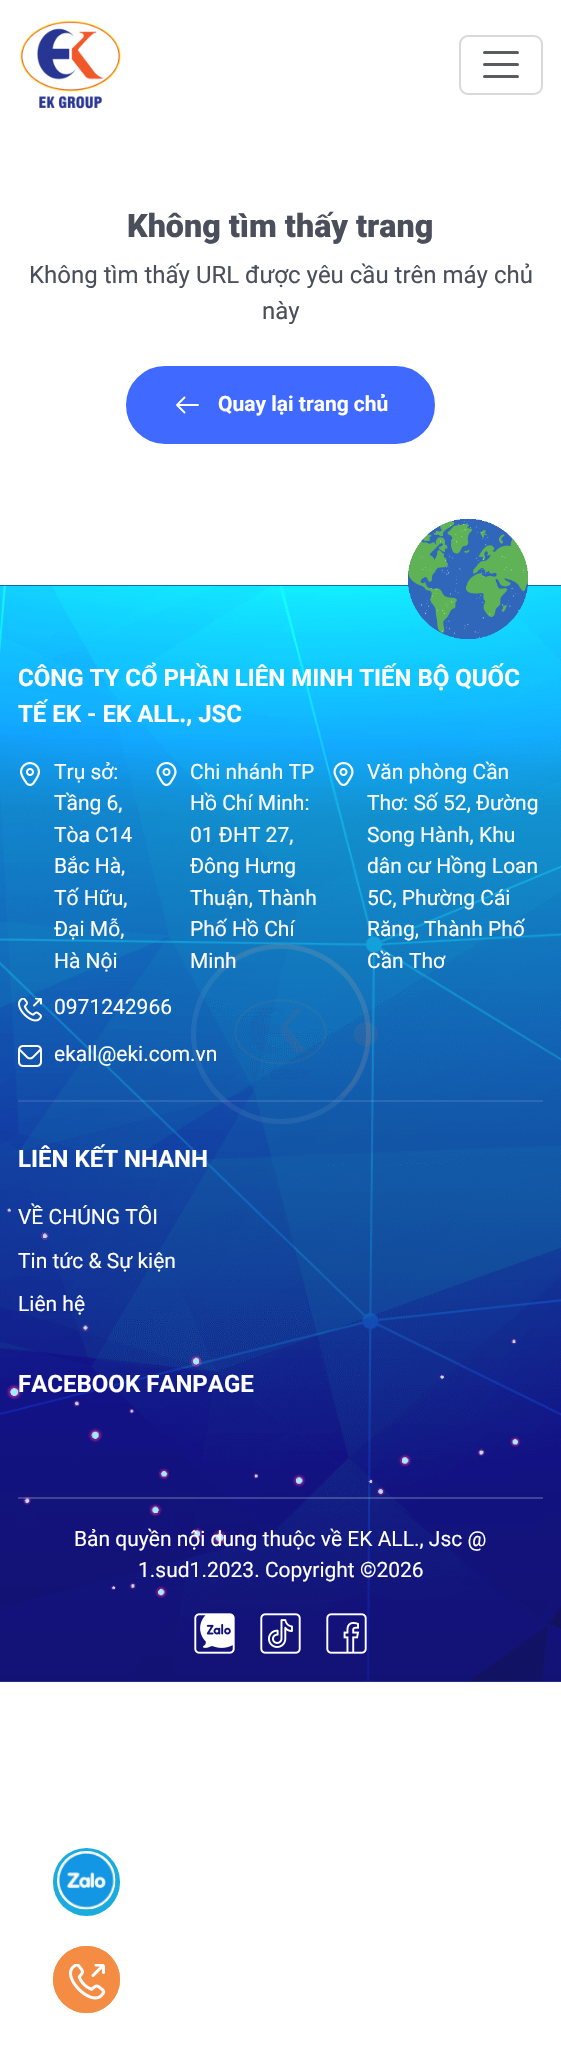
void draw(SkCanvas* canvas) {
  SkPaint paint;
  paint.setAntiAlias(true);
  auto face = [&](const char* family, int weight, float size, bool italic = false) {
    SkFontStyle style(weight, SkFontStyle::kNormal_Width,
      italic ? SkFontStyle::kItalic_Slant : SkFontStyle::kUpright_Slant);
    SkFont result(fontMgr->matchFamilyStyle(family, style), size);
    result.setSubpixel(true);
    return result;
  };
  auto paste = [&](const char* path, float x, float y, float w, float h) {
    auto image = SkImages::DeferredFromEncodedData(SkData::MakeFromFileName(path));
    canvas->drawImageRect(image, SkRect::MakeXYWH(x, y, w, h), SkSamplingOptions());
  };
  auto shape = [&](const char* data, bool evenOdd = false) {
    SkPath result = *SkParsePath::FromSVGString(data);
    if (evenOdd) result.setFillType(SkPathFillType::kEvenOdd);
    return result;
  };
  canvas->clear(0xffffffff);
  paste("img/1.png", 20, 20, 101, 89);
  paint.setStroke(true);
  paint.setStrokeWidth(2);
  paint.setColor(0xffd9d9d9);
  canvas->drawRoundRect(SkRect::MakeXYWH(460, 36, 82, 58), 8, 8, paint);
  paint.setStrokeWidth(3);
  paint.setStrokeCap(SkPaint::kRound_Cap);
  paint.setColor(0xff595c5f);
  canvas->drawPath(shape("M484.5 52.5H517.5M484.5 64.5H517.5M484.5 76.5H517.5"), paint);
  paint.setStroke(false);
  paint.setColor(0xff3f69ff);
  canvas->drawRoundRect(SkRect::MakeXYWH(127, 367, 307, 76), 38, 38, paint);
  paint.setStroke(true);
  paint.setStrokeWidth(2);
  paint.setStrokeCap(SkPaint::kButt_Cap);
  canvas->drawRoundRect(SkRect::MakeXYWH(127, 367, 307, 76), 38, 38, paint);
  paint.setStrokeWidth(1.9f);
  paint.setStrokeCap(SkPaint::kRound_Cap);
  paint.setStrokeJoin(SkPaint::kRound_Join);
  paint.setColor(0xffffffff);
  canvas->drawPath(shape("M184.5 397.5L177 405L184.5 412.5M198 405H177"), paint);
  paint.setStroke(false);
  paint.setColor(0xff374699);
  canvas->drawRect(SkRect::MakeXYWH(0, 1681, 561, 1), paint);
  paste("img/2.png", 0, 585, 561, 1097);
  paste("img/3.png", 408, 519, 120, 120);
  paint.setColor(0x1affffff);
  canvas->drawRect(SkRect::MakeXYWH(18, 1100, 525, 2), paint);
  paste("img/4.png", 20, 762, 20, 24);
  paste("img/5.png", 156, 762, 21, 24);
  paste("img/6.png", 333, 762, 21, 24);
  paste("img/7.png", 18, 998, 24, 24);
  paste("img/8.png", 18, 1045, 24, 22);
  paint.setColor(0x33ffffff);
  canvas->drawRect(SkRect::MakeXYWH(18, 1497, 525, 2), paint);
  paste("img/9.png", 194, 1613, 41, 41);
  paste("img/10.png", 260, 1613, 41, 41);
  paste("img/11.png", 326, 1613, 41, 41);
  paint.setStroke(true);
  paint.setStrokeWidth(5);
  paint.setStrokeCap(SkPaint::kButt_Cap);
  paint.setStrokeJoin(SkPaint::kMiter_Join);
  paint.setColor(0x14e8e8e8);
  canvas->drawCircle(281, 1034, 87.5f, paint);
  paste("img/12.png", 234, 999, 93, 80);
  paint.setStrokeWidth(4.5f);
  paint.setColor(0x14f48335);
  canvas->drawPath(shape("M218.5 971.5C279.5 910.5 383.5 966 366.5 1050.5C363 1067.5 354.5 1083.5 342.5 1095.5"), paint);
  paint.setStroke(false);
  canvas->drawCircle(366, 1034, 12, paint);
  paint.setColor(0xff1aacdc);
  canvas->drawRoundRect(SkRect::MakeXYWH(53, 1848, 67, 68), 33.5f, 33.5f, paint);
  paste("img/13.png", 57, 1851, 59, 59);
  paint.setColor(0xfff58c43);
  canvas->drawCircle(86.5f, 1979.5f, 33.5f, paint);
  paste("img/14.png", 69, 1964, 36, 36);
  paint.setStroke(true);
  paint.setStrokeWidth(2);
  canvas->drawCircle(86.5f, 1979.5f, 32.5f, paint);
  auto f0 = face("Roboto", 900, 32.25f);
  paint.setStroke(false);
  paint.setColor(0xff4b4f5c);
  canvas->drawString("Không tìm thấy trang", 127, 237, f0, paint);
  auto f1 = face("Roboto", 400, 24);
  canvas->drawString("Không tìm thấy URL được yêu cầu trên máy chủ", 29, 283, f1, paint);
  canvas->drawString("này", 262, 319, f1, paint);
  auto f2 = face("Roboto", 700, 21);
  paint.setColor(0xffffffff);
  canvas->drawString("Quay lại trang chủ", 218, 411, f2, paint);
  auto f3 = face("Roboto", 700, 24);
  canvas->drawString("CÔNG TY CỔ PHẦN LIÊN MINH TIẾN BỘ QUỐC", 18, 686, f3, paint);
  canvas->drawString("TẾ EK - EK ALL., JSC", 18, 722, f3, paint);
  auto f4 = face("Roboto", 400, 21);
  {
    const struct { const char* s; float x, y; } items[] = {
      {"Trụ sở:", 54, 779},
      {"Tầng 6,", 54, 810},
      {"Tòa C14", 54, 842},
      {"Bắc Hà,", 54, 873},
      {"Tố Hữu,", 54, 905},
      {"Đại Mỗ,", 54, 936},
      {"Hà Nội", 54, 968},
      {"Chi nhánh TP", 190, 779},
      {"Hồ Chí Minh:", 190, 810},
      {"01 ĐHT 27,", 190, 842},
      {"Đông Hưng", 190, 873},
      {"Thuận, Thành", 190, 905},
      {"Phố Hồ Chí", 190, 936},
      {"Minh", 190, 968},
      {"Văn phòng Cần", 367, 779},
      {"Thơ: Số 52, Đường", 367, 810},
      {"Song Hành, Khu", 367, 842},
      {"dân cư Hồng Loan", 367, 873},
      {"5C, Phường Cái", 367, 905},
      {"Răng, Thành Phố", 367, 936},
      {"Cần Thơ", 367, 968},
      {"0971242966", 54, 1014},
      {"ekall@eki.com.vn", 54, 1061},
    };
    for (auto [s, x, y] : items) {
      canvas->drawString(s, x, y, f4, paint);
    }
  }
  canvas->drawString("LIÊN KẾT NHANH", 18, 1167, f3, paint);
  {
    const struct { const char* s; float x, y; } items[] = {
      {"VỀ CHÚNG TÔI", 18, 1224},
      {"Tin tức & Sự kiện", 18, 1268},
      {"Liên hệ", 18, 1311},
    };
    for (auto [s, x, y] : items) {
      canvas->drawString(s, x, y, f4, paint);
    }
  }
  canvas->drawString("FACEBOOK FANPAGE", 18, 1392, f3, paint);
  canvas->drawString("Bản quyền nội dung thuộc về EK ALL., Jsc @", 74, 1546, f4, paint);
  canvas->drawString("1.sud1.2023. Copyright ©2026", 138, 1577, f4, paint);
}
